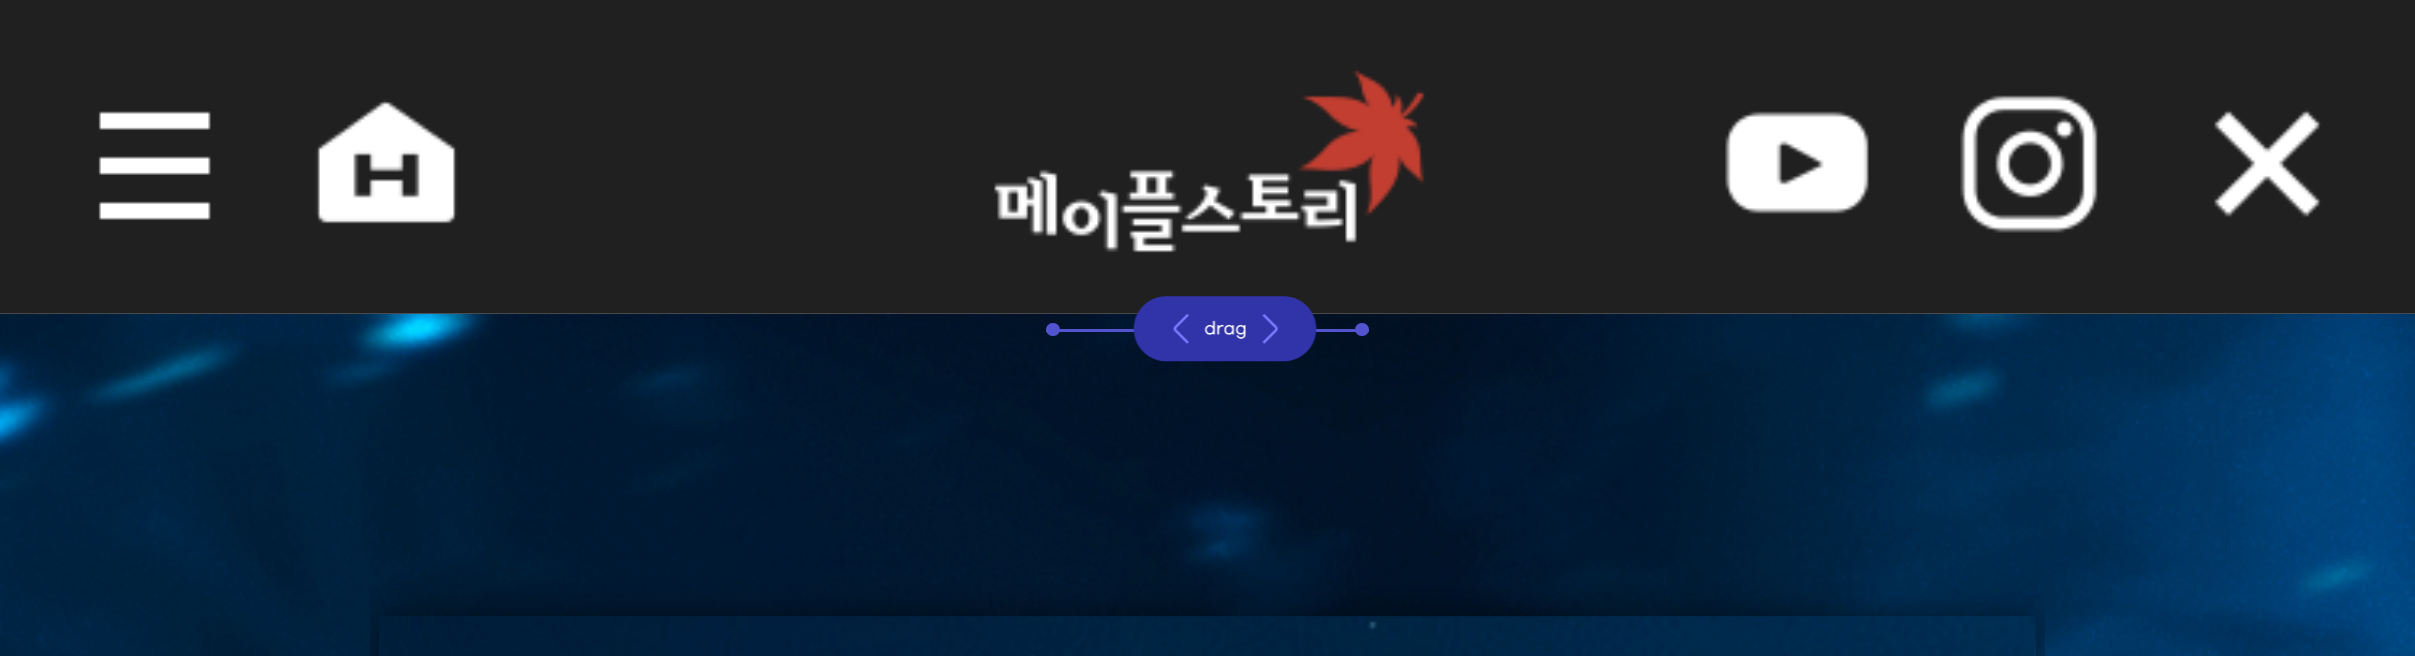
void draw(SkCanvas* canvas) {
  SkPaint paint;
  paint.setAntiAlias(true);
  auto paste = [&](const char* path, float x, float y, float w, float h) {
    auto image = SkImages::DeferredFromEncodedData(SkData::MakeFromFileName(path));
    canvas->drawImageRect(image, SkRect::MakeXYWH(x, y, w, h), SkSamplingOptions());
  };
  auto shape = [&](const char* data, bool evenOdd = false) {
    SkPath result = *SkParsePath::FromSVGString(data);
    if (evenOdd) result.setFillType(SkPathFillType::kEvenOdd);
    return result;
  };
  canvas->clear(0xffffffff);
  paste("img/3.png", 0, 313, 2415, 343);
  paste("img/1.png", 0, 0, 2415, 314);
  paint.setColor(0xff5153cf);
  canvas->drawRect(SkRect::MakeXYWH(1046, 329, 323, 3), paint);
  canvas->drawRoundRect(SkRect::MakeXYWH(1046, 323, 14, 13), 6.5f, 6.5f, paint);
  paste("img/2.png", 1133, 296, 184, 66);
  canvas->drawRoundRect(SkRect::MakeXYWH(1355, 323, 14, 13), 6.5f, 6.5f, paint);
  canvas->save();
  canvas->clipRect(SkRect::MakeXYWH(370, 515, 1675, 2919));
  canvas->clipPath(shape("M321 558H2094V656H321ZM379 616H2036V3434H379Z", true), true);
  paint.setColor(0x80000000);
  paint.setMaskFilter(SkMaskFilter::MakeBlur(kNormal_SkBlurStyle, 19));
  canvas->drawRect(SkRect::MakeXYWH(379, 616, 1657, 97), paint);
  paint.setMaskFilter(nullptr);
  canvas->restore();
  paste("img/4.png", 409, 616, 1625, 40);
}
